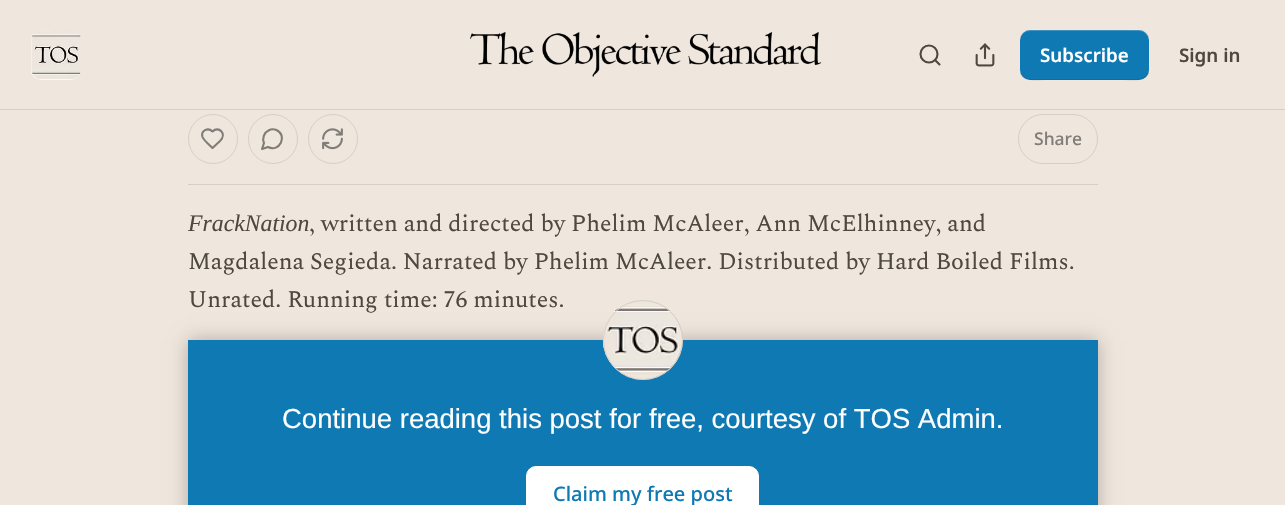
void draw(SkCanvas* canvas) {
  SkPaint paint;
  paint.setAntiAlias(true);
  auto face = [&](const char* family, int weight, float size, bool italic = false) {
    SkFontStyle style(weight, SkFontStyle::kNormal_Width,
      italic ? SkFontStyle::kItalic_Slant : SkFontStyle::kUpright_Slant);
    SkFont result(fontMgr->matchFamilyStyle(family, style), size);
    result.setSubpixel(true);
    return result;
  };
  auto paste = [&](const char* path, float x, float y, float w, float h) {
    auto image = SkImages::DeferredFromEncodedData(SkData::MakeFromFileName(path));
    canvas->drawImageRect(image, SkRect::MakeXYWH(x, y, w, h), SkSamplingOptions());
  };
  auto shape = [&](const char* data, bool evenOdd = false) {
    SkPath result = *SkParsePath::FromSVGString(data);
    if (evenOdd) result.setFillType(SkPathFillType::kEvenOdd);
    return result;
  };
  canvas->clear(0xffefe6dd);
  paint.setColor(0xffd7cfc7);
  canvas->drawRect(SkRect::MakeXYWH(0, 109, 1285, 1), paint);
  paint.setColor(0xffffffff);
  canvas->drawRoundRect(SkRect::MakeXYWH(31, 30, 50, 50), 10, 10, paint);
  paste("img/1.png", 31, 30, 50, 50);
  paste("img/2.png", 470, 32, 352, 45);
  paint.setStroke(true);
  paint.setStrokeWidth(2.1f);
  paint.setColor(0xff4f4841);
  canvas->drawCircle(929, 54, 8.5f, paint);
  paint.setStrokeCap(SkPaint::kRound_Cap);
  paint.setStrokeJoin(SkPaint::kRound_Join);
  canvas->drawPath(shape("M939.5 64.5L935 60"), paint);
  paste("img/3.png", 975, 43, 20, 24);
  paint.setStroke(false);
  paint.setColor(0xff0e79b2);
  canvas->drawRoundRect(SkRect::MakeXYWH(1020, 30, 129, 50), 10, 10, paint);
  paint.setColor(0x1a000000);
  canvas->drawPath(shape("M1020 69C1020 84 1038 80 1048 80H1121C1131 80 1149 84 1149 69C1149 74 1144 79 1139 79H1030C1024 79 1020 74 1020 69Z"), paint);
  paint.setColor(0x33ffffff);
  canvas->drawPath(shape("M1030 31H1139C1144 31 1149 36 1149 41C1149 26 1131 30 1121 30H1048C1038 30 1020 26 1020 41C1020 36 1024 31 1030 31Z"), paint);
  paint.setColor(0xffd7cfc7);
  canvas->drawRect(SkRect::MakeXYWH(188, 184, 910, 1), paint);
  paint.setStroke(true);
  paint.setStrokeWidth(1);
  paint.setStrokeCap(SkPaint::kButt_Cap);
  paint.setStrokeJoin(SkPaint::kMiter_Join);
  canvas->drawCircle(213, 139, 24.5f, paint);
  paint.setStrokeWidth(2.1f);
  paint.setStrokeCap(SkPaint::kRound_Cap);
  paint.setStrokeJoin(SkPaint::kRound_Join);
  paint.setColor(0xff807d79);
  canvas->drawPath(shape("M220 141C227.5 133.5 218.5 125.5 212.5 131.5C208 127 200.5 130.5 202.5 137C203.5 140 210 145.5 212.5 148Z"), paint);
  paint.setStrokeWidth(1);
  paint.setStrokeCap(SkPaint::kButt_Cap);
  paint.setStrokeJoin(SkPaint::kMiter_Join);
  paint.setColor(0xffd7cfc7);
  canvas->drawCircle(273, 139, 24.5f, paint);
  paint.setStrokeWidth(2.1f);
  paint.setStrokeCap(SkPaint::kRound_Cap);
  paint.setStrokeJoin(SkPaint::kRound_Join);
  paint.setColor(0xff807d79);
  canvas->drawPath(shape("M268 147C279.5 153 288 135.5 276.5 130C274 129 271 129 268.5 130.5C264 132.5 262 138.5 264 143L262 149Z"), paint);
  paint.setStrokeWidth(1);
  paint.setStrokeCap(SkPaint::kButt_Cap);
  paint.setStrokeJoin(SkPaint::kMiter_Join);
  paint.setColor(0xffd7cfc7);
  canvas->drawCircle(333, 139, 24.5f, paint);
  paste("img/4.png", 322, 128, 21, 22);
  canvas->drawRoundRect(SkRect::MakeXYWH(1018.5f, 114.5f, 79, 49), 24.5f, 24.5f, paint);
  paint.setStroke(false);
  paint.setColor(0xff0e79b2);
  canvas->drawRect(SkRect::MakeXYWH(188, 340, 910, 165), paint);
  paint.setColor(0xffffffff);
  canvas->drawRoundRect(SkRect::MakeXYWH(526.5f, 466.5f, 232, 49), 9.5f, 9.5f, paint);
  paint.setStroke(true);
  canvas->drawRoundRect(SkRect::MakeXYWH(526.5f, 466.5f, 232, 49), 9.5f, 9.5f, paint);
  canvas->save();
  canvas->clipPath(shape("M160 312H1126V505H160ZM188 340H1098V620H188Z", true), true);
  paint.setStroke(false);
  paint.setColor(0x40000000);
  paint.setMaskFilter(SkMaskFilter::MakeBlur(kNormal_SkBlurStyle, 9));
  canvas->drawRect(SkRect::MakeXYWH(188, 340, 910, 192), paint);
  paint.setMaskFilter(nullptr);
  canvas->restore();
  paint.setStroke(true);
  paint.setColor(0xffd7cfc7);
  canvas->drawCircle(643, 340, 39.5f, paint);
  paste("img/5.png", 602, 300, 80, 79);
  canvas->drawCircle(643, 340, 39.5f, paint);
  auto f0 = face("Noto Sans", 600, 18.75f);
  paint.setStroke(false);
  paint.setColor(0xffffffff);
  canvas->drawString("Subscribe", 1040, 62, f0, paint);
  paint.setColor(0xff4f4841);
  canvas->drawString("Sign in", 1179, 62, f0, paint);
  auto f1 = face("Noto Sans", 500, 17.5f);
  paint.setColor(0xff807d79);
  canvas->drawString("Share", 1034, 145, f1, paint);
  auto f2 = face("Liberation Serif", 400, 23.75f, true);
  paint.setColor(0xff4f4841);
  canvas->drawString("FrackNation", 188, 231, f2, paint);
  auto f3 = face("Spectral", 400, 23.75f);
  {
    const struct { const char* s; float x, y; } items[] = {
      {", written and directed by Phelim McAleer, Ann McElhinney, and", 309, 231},
      {"Magdalena Segieda. Narrated by Phelim McAleer. Distributed by Hard Boiled Films.", 188, 269},
      {"Unrated. Running time: 76 minutes.", 188, 307},
    };
    for (auto [s, x, y] : items) {
      canvas->drawString(s, x, y, f3, paint);
    }
  }
  auto f4 = face("Liberation Sans", 400, 27.5f);
  paint.setColor(0xffffffff);
  canvas->drawString("Continue reading this post for free, courtesy of TOS Admin.", 282, 428, f4, paint);
  auto f5 = face("Noto Sans", 500, 20);
  paint.setColor(0xff0e79b2);
  canvas->drawString("Claim my free post", 553, 501, f5, paint);
}
